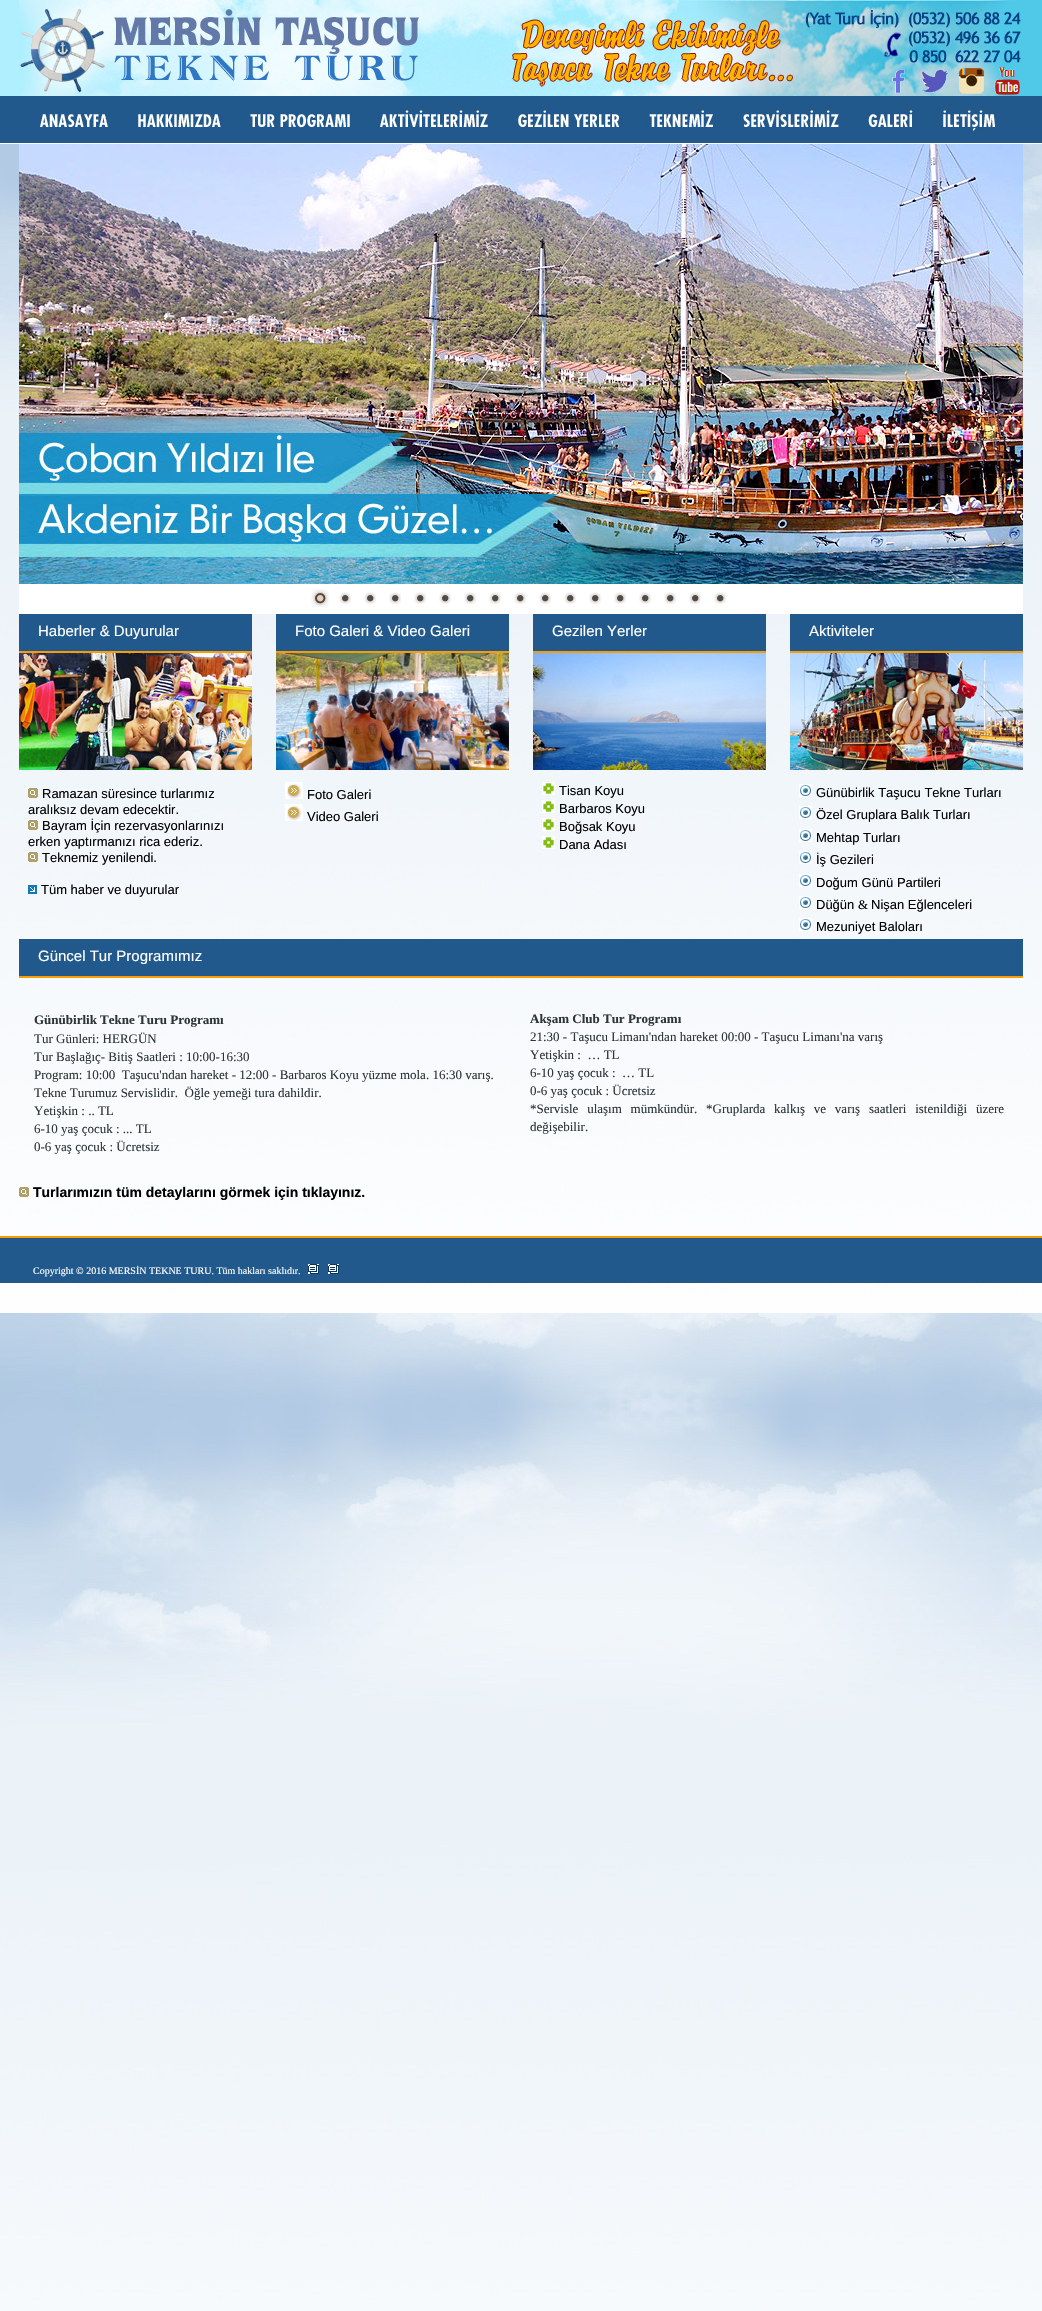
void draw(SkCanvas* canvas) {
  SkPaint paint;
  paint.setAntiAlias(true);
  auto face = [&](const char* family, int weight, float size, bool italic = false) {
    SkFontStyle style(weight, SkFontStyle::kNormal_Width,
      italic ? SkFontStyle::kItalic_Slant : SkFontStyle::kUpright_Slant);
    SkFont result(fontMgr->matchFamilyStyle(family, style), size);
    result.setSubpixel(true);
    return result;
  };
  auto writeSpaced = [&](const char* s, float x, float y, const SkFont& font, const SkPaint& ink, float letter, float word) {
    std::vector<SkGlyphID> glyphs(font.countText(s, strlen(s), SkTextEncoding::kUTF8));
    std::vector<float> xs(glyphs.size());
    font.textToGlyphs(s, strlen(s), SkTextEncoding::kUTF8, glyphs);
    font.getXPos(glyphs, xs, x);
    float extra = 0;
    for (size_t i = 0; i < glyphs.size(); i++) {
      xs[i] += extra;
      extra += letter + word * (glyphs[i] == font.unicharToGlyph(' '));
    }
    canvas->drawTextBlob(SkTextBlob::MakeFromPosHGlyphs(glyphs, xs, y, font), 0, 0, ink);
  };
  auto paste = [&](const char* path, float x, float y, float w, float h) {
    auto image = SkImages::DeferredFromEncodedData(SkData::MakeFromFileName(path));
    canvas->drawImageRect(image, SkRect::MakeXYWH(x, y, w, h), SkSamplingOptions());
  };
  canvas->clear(0xffffffff);
  paste("img/1.png", 0, 144, 1042, 2167);
  paint.setColor(0xffb0effe);
  canvas->drawRect(SkRect::MakeXYWH(0, 0, 19, 96), paint);
  paste("img/2.png", 19, 0, 1004, 96);
  paint.setColor(0xff50c9e8);
  canvas->drawRect(SkRect::MakeXYWH(1023, 0, 19, 96), paint);
  paint.setColor(0xff21598c);
  canvas->drawRect(SkRect::MakeXYWH(0, 96, 1042, 47), paint);
  paste("img/3.png", 38, 113, 70, 14);
  paste("img/4.png", 138, 114, 87, 13);
  paste("img/5.png", 249, 112, 101, 16);
  paste("img/6.png", 378, 110, 110, 17);
  paste("img/7.png", 518, 105, 105, 22);
  paste("img/8.png", 646, 110, 67, 18);
  paste("img/9.png", 743, 105, 96, 23);
  paste("img/10.png", 868, 110, 48, 18);
  paste("img/11.png", 943, 110, 52, 23);
  paste("img/12.png", 19, 144, 1004, 440);
  paint.setColor(0xffffffff);
  canvas->drawRect(SkRect::MakeXYWH(19, 584, 1004, 30), paint);
  paste("img/13.png", 311, 589, 18, 18);
  paste("img/14.png", 339, 592, 12, 12);
  paste("img/14.png", 364, 592, 12, 12);
  paste("img/14.png", 389, 592, 12, 12);
  paste("img/14.png", 414, 592, 12, 12);
  paste("img/14.png", 439, 592, 12, 12);
  paste("img/14.png", 464, 592, 12, 12);
  paste("img/14.png", 489, 592, 12, 12);
  paste("img/14.png", 514, 592, 12, 12);
  paste("img/14.png", 539, 592, 12, 12);
  paste("img/14.png", 564, 592, 12, 12);
  paste("img/14.png", 589, 592, 12, 12);
  paste("img/14.png", 614, 592, 12, 12);
  paste("img/14.png", 639, 592, 12, 12);
  paste("img/14.png", 664, 592, 12, 12);
  paste("img/14.png", 689, 592, 12, 12);
  paste("img/14.png", 714, 592, 12, 12);
  {
    const struct { float x, y, w, h; SkColor color; } items[] = {
      {19, 614, 233, 37, 0xff21598c},
      {19, 651, 233, 2, 0xfffa9c00},
      {276, 614, 233, 37, 0xff21598c},
      {276, 651, 233, 2, 0xfffa9c00},
      {533, 614, 233, 37, 0xff21598c},
      {533, 651, 233, 2, 0xfffa9c00},
      {790, 614, 233, 37, 0xff21598c},
      {790, 651, 233, 2, 0xfffa9c00},
    };
    for (auto [x, y, w, h, color] : items) {
      paint.setColor(color);
      canvas->drawRect(SkRect::MakeXYWH(x, y, w, h), paint);
    }
  }
  paste("img/15.png", 19, 653, 233, 117);
  paste("img/16.png", 28, 788, 10, 10);
  paste("img/16.png", 28, 820, 10, 10);
  paste("img/16.png", 28, 852, 10, 10);
  paste("img/17.png", 28, 885, 9, 9);
  paste("img/18.png", 276, 653, 233, 117);
  paste("img/19.png", 285, 782, 18, 17);
  paste("img/19.png", 285, 804, 18, 17);
  paste("img/20.png", 533, 653, 233, 117);
  paste("img/21.png", 542, 782, 13, 13);
  paste("img/21.png", 542, 800, 13, 13);
  paste("img/21.png", 542, 818, 13, 13);
  paste("img/21.png", 542, 836, 13, 13);
  paste("img/22.png", 790, 653, 233, 117);
  paste("img/23.png", 799, 784, 13, 13);
  paste("img/23.png", 799, 806, 13, 13);
  paste("img/23.png", 799, 829, 13, 13);
  paste("img/23.png", 799, 851, 13, 13);
  paste("img/23.png", 799, 874, 13, 13);
  paste("img/23.png", 799, 896, 13, 13);
  paste("img/23.png", 799, 918, 13, 13);
  paint.setColor(0xff21598c);
  canvas->drawRect(SkRect::MakeXYWH(19, 939, 1004, 37), paint);
  paint.setColor(0xfffa9c00);
  canvas->drawRect(SkRect::MakeXYWH(19, 976, 1004, 2), paint);
  paste("img/16.png", 19, 1187, 10, 10);
  canvas->drawRect(SkRect::MakeXYWH(0, 1236, 1042, 2), paint);
  paint.setColor(0xff21598c);
  canvas->drawRect(SkRect::MakeXYWH(0, 1238, 1042, 45), paint);
  paste("img/24.png", 308, 1264, 11, 10);
  paste("img/24.png", 328, 1264, 11, 10);
  auto f0 = face("Liberation Sans", 400, 15);
  paint.setColor(0xffffffff);
  {
    const struct { const char* s; float x, y; } items[] = {
      {"Haberler & Duyurular", 38, 636},
      {"Foto Galeri & Video Galeri", 295, 636},
      {"Gezilen Yerler", 552, 636},
      {"Aktiviteler", 809, 636},
    };
    for (auto [s, x, y] : items) {
      canvas->drawString(s, x, y, f0, paint);
    }
  }
  auto f1 = face("Liberation Sans", 400, 13);
  paint.setColor(0xff000000);
  {
    const struct { const char* s; float x, y; } items[] = {
      {"Ramazan süresince turlarımız", 42, 798},
      {"aralıksız devam edecektir.", 28, 814},
      {"Bayram İçin rezervasyonlarınızı", 42, 830},
      {"erken yaptırmanızı rica ederiz.", 28, 846},
      {"Teknemiz yenilendi.", 42, 862},
      {"Tüm haber ve duyurular", 41, 894},
      {"Foto Galeri", 307, 799},
      {"Video Galeri", 307, 821},
      {"Tisan Koyu", 559, 795},
      {"Barbaros Koyu", 559, 813},
      {"Boğsak Koyu", 559, 831},
      {"Dana Adası", 559, 849},
      {"Günübirlik Taşucu Tekne Turları", 816, 797},
      {"Özel Gruplara Balık Turları", 816, 819},
      {"Mehtap Turları", 816, 842},
      {"İş Gezileri", 816, 864},
      {"Doğum Günü Partileri", 816, 887},
      {"Düğün", 816, 909},
    };
    for (auto [s, x, y] : items) {
      canvas->drawString(s, x, y, f1, paint);
    }
  }
  auto f2 = face("Liberation Serif", 400, 13);
  canvas->drawString("&", 858, 909, f2, paint);
  canvas->drawString("Nişan Eğlenceleri", 871, 909, f1, paint);
  canvas->drawString("Mezuniyet Baloları", 816, 931, f1, paint);
  paint.setColor(0xffffffff);
  canvas->drawString("Güncel Tur Programımız", 38, 961, f0, paint);
  auto f3 = face("Liberation Serif", 700, 13);
  paint.setColor(0xff2d3536);
  canvas->drawString("Günübirlik Tekne Turu Programı", 34, 1024, f3, paint);
  {
    const struct { const char* s; float x, y; } items[] = {
      {"Tur Günleri: HERGÜN", 34, 1043},
      {"Tur Başlağıç- Bitiş Saatleri : 10:00-16:30", 34, 1061},
      {"Program: 10:00  Taşucu'ndan hareket - 12:00 - Barbaros Koyu yüzme mola. 16:30 varış.", 34, 1079},
      {"Tekne Turumuz Servislidir.  Öğle yemeği tura dahildir.", 34, 1097},
      {"Yetişkin : .. TL", 34, 1115},
      {"6-10 yaş çocuk : ... TL", 34, 1133},
      {"0-6 yaş çocuk : Ücretsiz", 34, 1151},
    };
    for (auto [s, x, y] : items) {
      canvas->drawString(s, x, y, f2, paint);
    }
  }
  canvas->drawString("Akşam Club Tur Programı", 530, 1023, f3, paint);
  {
    const struct { const char* s; float x, y; } items[] = {
      {"21:30 - Taşucu Limanı'ndan hareket 00:00 - Taşucu Limanı'na varış", 530, 1041},
      {"Yetişkin :  … TL", 530, 1059},
      {"6-10 yaş çocuk :  … TL", 530, 1077},
      {"0-6 yaş çocuk : Ücretsiz", 530, 1095},
    };
    for (auto [s, x, y] : items) {
      canvas->drawString(s, x, y, f2, paint);
    }
  }
  writeSpaced("*Servisle ulaşım mümkündür. *Gruplarda kalkış ve varış saatleri istenildiği üzere", 530, 1113, f2, paint, 0, 5.5f);
  canvas->drawString("değişebilir.", 530, 1131, f2, paint);
  auto f4 = face("Liberation Sans", 700, 14);
  paint.setColor(0xff000000);
  canvas->drawString("Turlarımızın tüm detaylarını görmek için tıklayınız.", 33, 1197, f4, paint);
  auto f5 = face("Liberation Serif", 400, 10);
  paint.setColor(0xffffffff);
  canvas->drawString("Copyright © 2016 MERSİN TEKNE TURU. Tüm hakları saklıdır.", 33, 1274, f5, paint);
}
